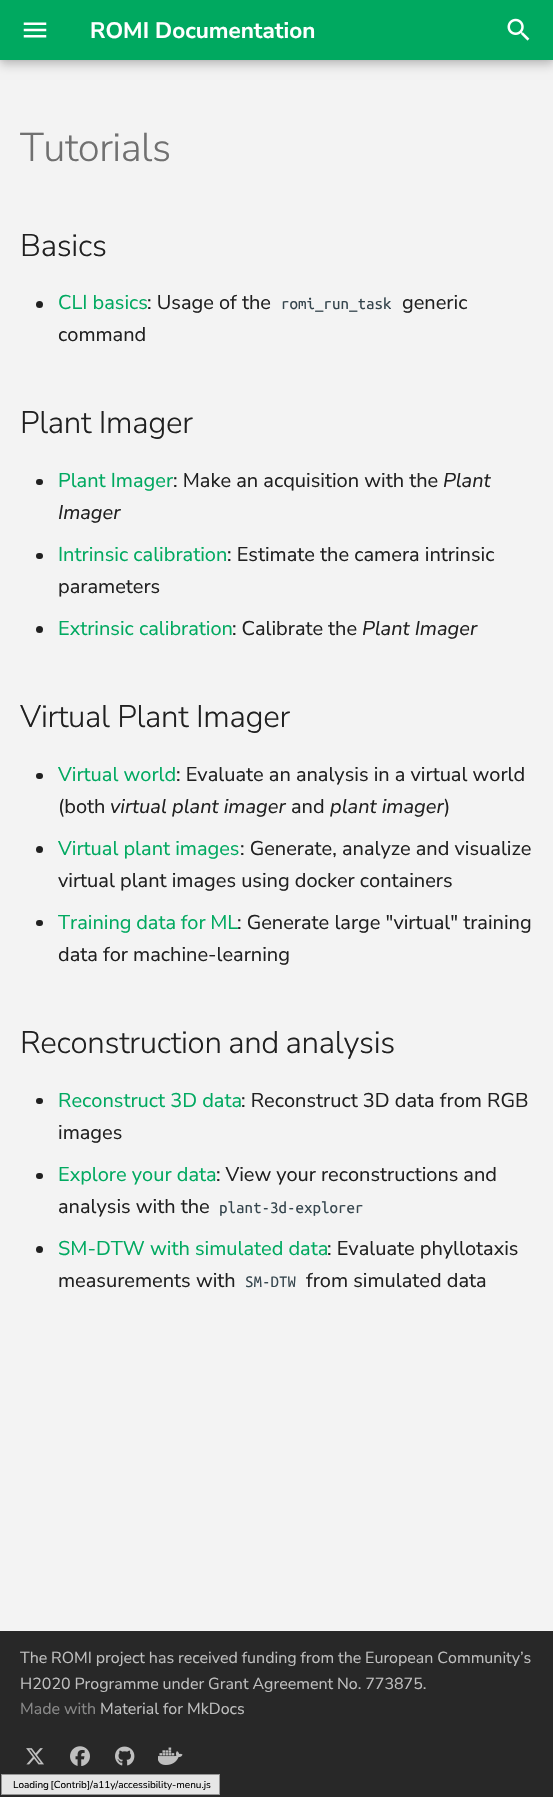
void draw(SkCanvas* canvas) {
  SkPaint paint;
  paint.setAntiAlias(true);
  auto face = [&](const char* family, int weight, float size, bool italic = false) {
    SkFontStyle style(weight, SkFontStyle::kNormal_Width,
      italic ? SkFontStyle::kItalic_Slant : SkFontStyle::kUpright_Slant);
    SkFont result(fontMgr->matchFamilyStyle(family, style), size);
    result.setSubpixel(true);
    return result;
  };
  auto writeSpaced = [&](const char* s, float x, float y, const SkFont& font, const SkPaint& ink, float letter, float word) {
    std::vector<SkGlyphID> glyphs(font.countText(s, strlen(s), SkTextEncoding::kUTF8));
    std::vector<float> xs(glyphs.size());
    font.textToGlyphs(s, strlen(s), SkTextEncoding::kUTF8, glyphs);
    font.getXPos(glyphs, xs, x);
    float extra = 0;
    for (size_t i = 0; i < glyphs.size(); i++) {
      xs[i] += extra;
      extra += letter + word * (glyphs[i] == font.unicharToGlyph(' '));
    }
    canvas->drawTextBlob(SkTextBlob::MakeFromPosHGlyphs(glyphs, xs, y, font), 0, 0, ink);
  };
  auto paste = [&](const char* path, float x, float y, float w, float h) {
    auto image = SkImages::DeferredFromEncodedData(SkData::MakeFromFileName(path));
    canvas->drawImageRect(image, SkRect::MakeXYWH(x, y, w, h), SkSamplingOptions());
  };
  canvas->clear(0xfff3f3f3);
  paint.setColor(0x33000000);
  paint.setMaskFilter(SkMaskFilter::MakeBlur(kNormal_SkBlurStyle, 5));
  canvas->drawRect(SkRect::MakeXYWH(0, 5, 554, 60), paint);
  paint.setMaskFilter(nullptr);
  paint.setColor(0x1a000000);
  paint.setMaskFilter(SkMaskFilter::MakeBlur(kNormal_SkBlurStyle, 2.5f));
  canvas->drawRect(SkRect::MakeXYWH(0, 0, 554, 60), paint);
  paint.setMaskFilter(nullptr);
  paint.setColor(0xff00a960);
  canvas->drawRect(SkRect::MakeXYWH(0, 0, 553, 60), paint);
  paste("img/1.png", 23, 22, 24, 16);
  paste("img/2.png", 507, 18, 23, 23);
  paint.setColor(0xff202020);
  canvas->drawCircle(39.5f, 304.5f, 3.5f, paint);
  canvas->drawRoundRect(SkRect::MakeXYWH(36, 479, 7, 6), 3, 3, paint);
  canvas->drawRoundRect(SkRect::MakeXYWH(36, 553, 7, 6), 3, 3, paint);
  canvas->drawCircle(39.5f, 629.5f, 3.5f, paint);
  canvas->drawRoundRect(SkRect::MakeXYWH(36, 773, 7, 6), 3, 3, paint);
  canvas->drawCircle(39.5f, 849.5f, 3.5f, paint);
  canvas->drawRoundRect(SkRect::MakeXYWH(36, 920, 7, 6), 3, 3, paint);
  canvas->drawRoundRect(SkRect::MakeXYWH(36, 1098, 7, 6), 3, 3, paint);
  canvas->drawRoundRect(SkRect::MakeXYWH(36, 1173, 7, 6), 3, 3, paint);
  canvas->drawCircle(39.5f, 1249.5f, 3.5f, paint);
  paint.setColor(0xff282828);
  canvas->drawRect(SkRect::MakeXYWH(0, 1631, 553, 166), paint);
  paste("img/3.png", 26, 1748, 18, 17);
  paste("img/4.png", 70, 1746, 20, 20);
  paste("img/5.png", 115, 1746, 20, 20);
  paste("img/6.png", 158, 1747, 25, 18);
  paint.setColor(0xffe6e6e6);
  canvas->drawRect(SkRect::MakeXYWH(1.5f, 1774.5f, 218, 20), paint);
  paint.setStroke(true);
  paint.setStrokeWidth(1);
  paint.setColor(0xff959595);
  canvas->drawRect(SkRect::MakeXYWH(1.5f, 1774.5f, 218, 20), paint);
  auto f0 = face("Nunito Sans", 700, 22.5f);
  paint.setStroke(false);
  paint.setColor(0xffffffff);
  canvas->drawString("ROMI Documentation", 90, 38, f0, paint);
  auto f1 = face("Nunito Sans", 300, 40);
  paint.setColor(0xff707070);
  writeSpaced("Tutorials", 20, 161, f1, paint, -0.5f, 0);
  auto f2 = face("Nunito Sans", 300, 31.25f);
  paint.setColor(0xff202020);
  writeSpaced("Basics", 20, 256, f2, paint, -0.3f, 0);
  auto f3 = face("Nunito Sans", 400, 20);
  paint.setColor(0xff00a960);
  canvas->drawString("CLI basics", 58, 309, f3, paint);
  paint.setColor(0xff202020);
  canvas->drawString(": Usage of the", 147, 309, f3, paint);
  auto f4 = face("Ubuntu Mono", 400, 17);
  paint.setColor(0xff36464e);
  canvas->drawString("romi_run_task", 281, 309, f4, paint);
  paint.setColor(0xff202020);
  canvas->drawString("generic", 402, 309, f3, paint);
  canvas->drawString("command", 58, 341, f3, paint);
  writeSpaced("Plant Imager", 20, 433, f2, paint, -0.3f, 0);
  paint.setColor(0xff00a960);
  canvas->drawString("Plant Imager", 58, 487, f3, paint);
  paint.setColor(0xff202020);
  canvas->drawString(": Make an acquisition with the", 173, 487, f3, paint);
  auto f5 = face("Nunito Sans", 400, 20, true);
  canvas->drawString("Plant", 443, 487, f5, paint);
  canvas->drawString("Imager", 58, 519, f5, paint);
  paint.setColor(0xff00a960);
  canvas->drawString("Intrinsic calibration", 58, 561, f3, paint);
  paint.setColor(0xff202020);
  canvas->drawString(": Estimate the camera intrinsic", 227, 561, f3, paint);
  canvas->drawString("parameters", 58, 593, f3, paint);
  paint.setColor(0xff00a960);
  canvas->drawString("Extrinsic calibration", 58, 635, f3, paint);
  paint.setColor(0xff202020);
  writeSpaced(": Calibrate the", 232, 635, f3, paint, 0, -0.25f);
  canvas->drawString("Plant Imager", 362, 635, f5, paint);
  writeSpaced("Virtual Plant Imager", 20, 727, f2, paint, -0.3f, 0);
  paint.setColor(0xff00a960);
  canvas->drawString("Virtual world", 58, 781, f3, paint);
  paint.setColor(0xff202020);
  canvas->drawString(": Evaluate an analysis in a virtual world", 176, 781, f3, paint);
  canvas->drawString("(both", 58, 813, f3, paint);
  canvas->drawString("virtual plant imager", 110, 813, f5, paint);
  canvas->drawString("and", 291, 813, f3, paint);
  canvas->drawString("plant imager", 330, 813, f5, paint);
  canvas->drawString(")", 444, 813, f3, paint);
  paint.setColor(0xff00a960);
  canvas->drawString("Virtual plant images", 58, 855, f3, paint);
  paint.setColor(0xff202020);
  canvas->drawString(": Generate, analyze and visualize", 240, 855, f3, paint);
  canvas->drawString("virtual plant images using docker containers", 58, 887, f3, paint);
  paint.setColor(0xff00a960);
  writeSpaced("Training data for ML", 58, 929, f3, paint, 0, -0.5f);
  paint.setColor(0xff202020);
  canvas->drawString(": Generate large \"virtual\" training", 237, 929, f3, paint);
  canvas->drawString("data for machine-learning", 58, 961, f3, paint);
  writeSpaced("Reconstruction and analysis", 20, 1053, f2, paint, -0.3f, -1);
  paint.setColor(0xff00a960);
  canvas->drawString("Reconstruct 3D data", 58, 1107, f3, paint);
  paint.setColor(0xff202020);
  canvas->drawString(": Reconstruct 3D data from RGB", 241, 1107, f3, paint);
  canvas->drawString("images", 58, 1139, f3, paint);
  paint.setColor(0xff00a960);
  canvas->drawString("Explore your data", 58, 1181, f3, paint);
  paint.setColor(0xff202020);
  writeSpaced(": View your reconstructions and", 216, 1181, f3, paint, 0, -0.25f);
  canvas->drawString("analysis with the", 58, 1213, f3, paint);
  paint.setColor(0xff36464e);
  canvas->drawString("plant-3d-explorer", 219, 1213, f4, paint);
  paint.setColor(0xff00a960);
  canvas->drawString("SM-DTW with simulated data", 58, 1255, f3, paint);
  paint.setColor(0xff202020);
  canvas->drawString(": Evaluate phyllotaxis", 327, 1255, f3, paint);
  canvas->drawString("measurements with", 58, 1287, f3, paint);
  paint.setColor(0xff36464e);
  canvas->drawString("SM-DTW", 245, 1287, f4, paint);
  paint.setColor(0xff202020);
  canvas->drawString("from simulated data", 306, 1287, f3, paint);
  auto f6 = face("Nunito Sans", 400, 16);
  paint.setColor(0xffbfbfbf);
  writeSpaced("The ROMI project has received funding from the European Community’s", 20, 1663, f6, paint, 0, -0.25f);
  writeSpaced("H2020 Programme under Grant Agreement No. 773875.", 20, 1689, f6, paint, 0, -0.25f);
  paint.setColor(0xff898989);
  canvas->drawString("Made with", 20, 1714, f6, paint);
  paint.setColor(0xffbfbfbf);
  canvas->drawString("Material for MkDocs", 100, 1714, f6, paint);
  auto f7 = face("Nunito Sans", 400, 10);
  paint.setColor(0xff000000);
  writeSpaced("Loading [Contrib]/a11y/accessibility-menu.js", 13, 1788, f7, paint, 0, -1);
}
